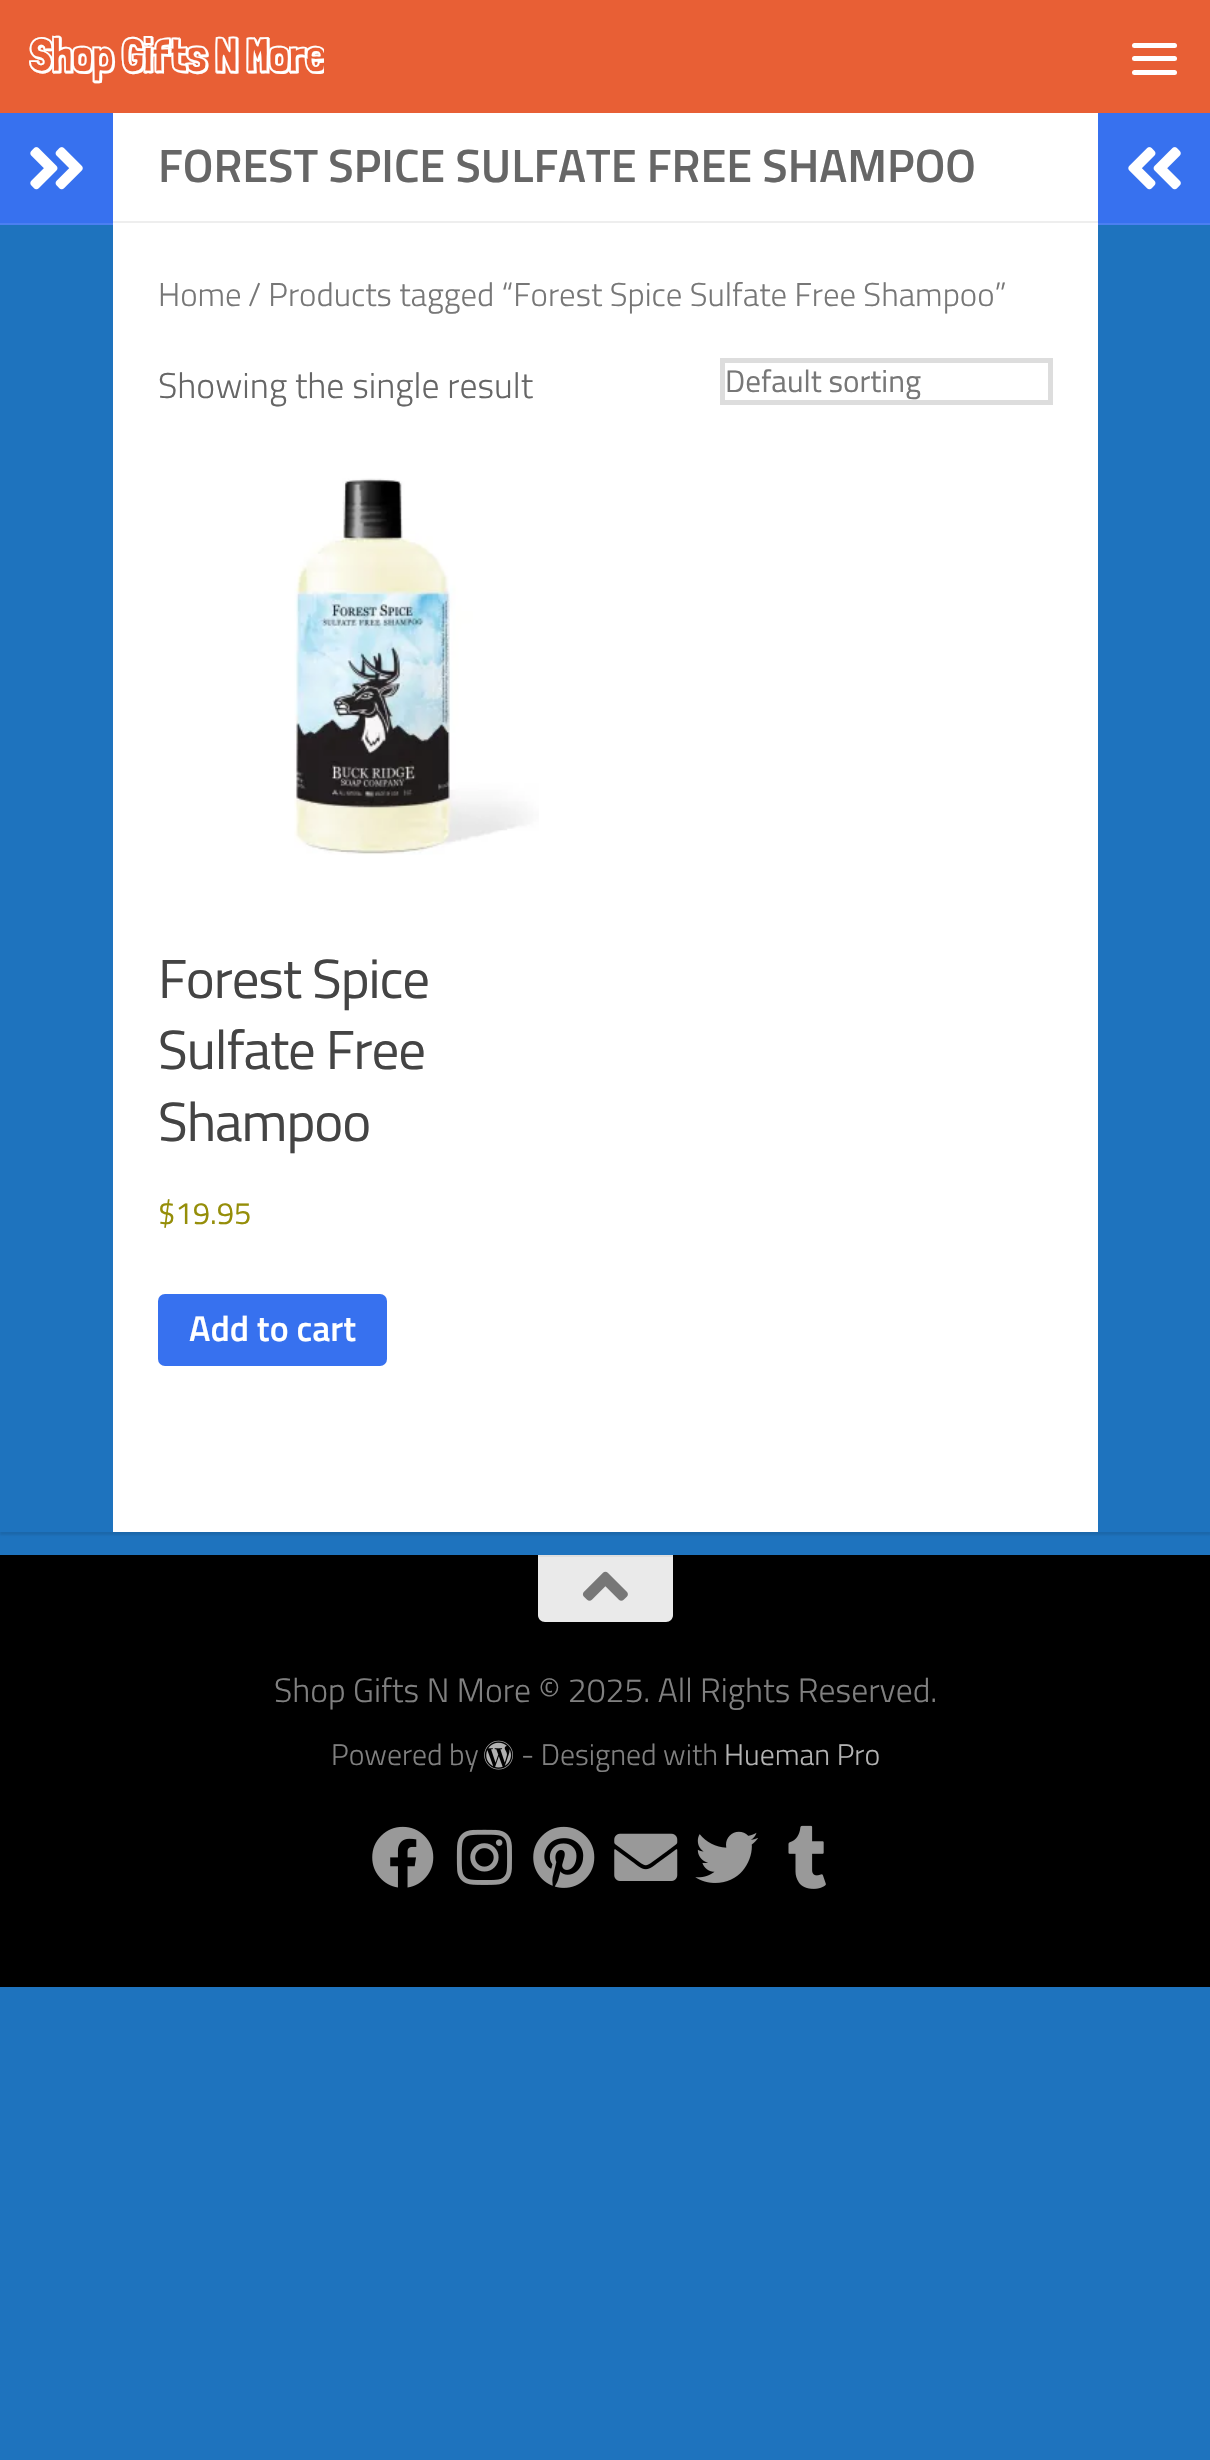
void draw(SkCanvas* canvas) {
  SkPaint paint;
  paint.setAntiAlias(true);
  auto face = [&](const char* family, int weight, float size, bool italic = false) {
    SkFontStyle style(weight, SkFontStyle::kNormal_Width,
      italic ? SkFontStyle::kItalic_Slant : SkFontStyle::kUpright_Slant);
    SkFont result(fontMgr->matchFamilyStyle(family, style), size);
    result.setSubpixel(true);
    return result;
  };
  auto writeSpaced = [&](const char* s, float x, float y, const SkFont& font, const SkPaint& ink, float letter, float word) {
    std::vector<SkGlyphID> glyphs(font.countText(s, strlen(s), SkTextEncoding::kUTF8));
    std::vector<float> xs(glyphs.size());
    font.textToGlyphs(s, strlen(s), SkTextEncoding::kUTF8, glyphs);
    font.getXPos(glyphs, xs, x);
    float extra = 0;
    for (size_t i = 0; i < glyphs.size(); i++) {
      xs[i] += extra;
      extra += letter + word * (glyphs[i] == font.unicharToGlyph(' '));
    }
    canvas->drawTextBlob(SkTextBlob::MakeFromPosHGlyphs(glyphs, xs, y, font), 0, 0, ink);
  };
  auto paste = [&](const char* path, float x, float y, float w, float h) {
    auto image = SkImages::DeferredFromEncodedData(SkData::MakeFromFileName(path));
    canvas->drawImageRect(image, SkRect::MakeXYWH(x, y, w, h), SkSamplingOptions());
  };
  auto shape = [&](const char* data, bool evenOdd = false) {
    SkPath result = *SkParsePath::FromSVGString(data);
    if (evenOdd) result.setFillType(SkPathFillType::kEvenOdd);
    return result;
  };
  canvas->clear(0xff1e73be);
  paint.setColor(0x1a000000);
  paint.setMaskFilter(SkMaskFilter::MakeBlur(kNormal_SkBlurStyle, 1));
  canvas->drawRect(SkRect::MakeXYWH(0, 115, 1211, 1420), paint);
  paint.setMaskFilter(nullptr);
  paint.setColor(0xffe85f35);
  canvas->drawRect(SkRect::MakeXYWH(0, 0, 1210, 113), paint);
  paint.setColor(0xffffffff);
  canvas->drawRoundRect(SkRect::MakeXYWH(1132, 43, 45, 5), 2.5f, 2.5f, paint);
  canvas->drawRoundRect(SkRect::MakeXYWH(1132, 56, 45, 5), 2.5f, 2.5f, paint);
  canvas->drawRoundRect(SkRect::MakeXYWH(1132, 70, 45, 5), 2.5f, 2.5f, paint);
  {
    const struct { float x, y, w, h; SkColor color; } items[] = {
      {113, 113, 985, 1419, 0xffffffff},
      {0, 225, 113, 1307, 0xff1e73be},
      {0, 113, 113, 110, 0xff3771ef},
      {0, 223, 113, 2, 0xff4b7ff1},
    };
    for (auto [x, y, w, h, color] : items) {
      paint.setColor(color);
      canvas->drawRect(SkRect::MakeXYWH(x, y, w, h), paint);
    }
  }
  paste("img/1.png", 30, 147, 53, 43);
  paint.setColor(0xffeeeeee);
  canvas->drawRect(SkRect::MakeXYWH(113, 221, 985, 2), paint);
  paint.setStroke(true);
  paint.setStrokeWidth(5);
  paint.setColor(0xffdddddd);
  canvas->drawRect(SkRect::MakeXYWH(722.5f, 360.5f, 328, 42), paint);
  paste("img/2.png", 294, 478, 245, 377);
  paint.setStroke(false);
  paint.setColor(0xff3771ef);
  canvas->drawRoundRect(SkRect::MakeXYWH(158, 1294, 229, 72), 7, 7, paint);
  canvas->drawRect(SkRect::MakeXYWH(1098, 113, 112, 110), paint);
  paint.setColor(0xff4b7ff1);
  canvas->drawRect(SkRect::MakeXYWH(1098, 223, 112, 2), paint);
  paste("img/3.png", 1128, 147, 53, 43);
  paint.setColor(0xff1e73be);
  canvas->drawRect(SkRect::MakeXYWH(1098, 225, 112, 1307), paint);
  paint.setColor(0xff000000);
  canvas->drawRect(SkRect::MakeXYWH(0, 1555, 1210, 432), paint);
  paint.setColor(0xffeaeaea);
  canvas->drawPath(shape("M538 1555H673V1615C673 1619 670 1622 666 1622H545C541 1622 538 1619 538 1615Z"), paint);
  paint.setColor(0xffdedede);
  canvas->drawRect(SkRect::MakeXYWH(538, 1555, 135, 2), paint);
  paste("img/4.png", 582, 1571, 46, 30);
  paste("img/5.png", 484, 1740, 29, 30);
  paste("img/6.png", 372, 1826, 62, 62);
  paste("img/7.png", 456, 1829, 56, 56);
  paste("img/8.png", 533, 1826, 62, 62);
  paste("img/9.png", 614, 1833, 64, 48);
  paste("img/10.png", 695, 1831, 63, 52);
  paste("img/11.png", 788, 1825, 38, 64);
  canvas->save();
  canvas->clipRect(SkRect::MakeXYWH(29, 0, 295, 113));
  auto f0 = face("Londrina Shadow", 700, 47.5f);
  paint.setColor(0xffffffff);
  writeSpaced("Shop Gifts N More", 29, 72, f0, paint, -1.1f, 0);
  canvas->restore();
  auto f1 = face("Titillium", 600, 46.75f);
  paint.setColor(0xff666666);
  canvas->drawString("FOREST SPICE SULFATE FREE SHAMPOO", 158, 182, f1, paint);
  auto f2 = face("Titillium", 300, 32.95f);
  paint.setColor(0xff777777);
  canvas->drawString("Home", 158, 306, f2, paint);
  canvas->drawString("/ Products tagged “Forest Spice Sulfate Free Shampoo”", 248, 306, f2, paint);
  auto f3 = face("Titillium", 300, 35.75f);
  paint.setColor(0xff666666);
  canvas->drawString("Showing the single result", 158, 398, f3, paint);
  auto f4 = face("Titillium", 400, 31.25f);
  paint.setColor(0xff777777);
  canvas->drawString("Default sorting", 725, 392, f4, paint);
  auto f5 = face("Titillium", 400, 55);
  paint.setColor(0xff444444);
  {
    const struct { const char* s; float x, y; } items[] = {
      {"Forest Spice", 158, 998},
      {"Sulfate Free", 158, 1069},
      {"Shampoo", 158, 1141},
    };
    for (auto [s, x, y] : items) {
      writeSpaced(s, x, y, f5, paint, -1.1f, 0);
    }
  }
  auto f6 = face("Titillium", 400, 31);
  paint.setColor(0xff958e09);
  canvas->drawString("$19.95", 158, 1224, f6, paint);
  auto f7 = face("Titillium", 600, 35.75f);
  paint.setColor(0xffffffff);
  canvas->drawString("Add to cart", 189, 1341, f7, paint);
  auto f8 = face("Titillium", 300, 33.75f);
  paint.setColor(0xff808080);
  canvas->drawString("Shop Gifts N More © 2025. All Rights Reserved.", 274, 1702, f8, paint);
  auto f9 = face("Titillium", 300, 29.75f);
  canvas->drawString("Powered by", 331, 1765, f9, paint);
  canvas->drawString("- Designed with", 521, 1765, f9, paint);
  paint.setColor(0xffb3b3b3);
  canvas->drawString("Hueman Pro", 724, 1765, f9, paint);
}
